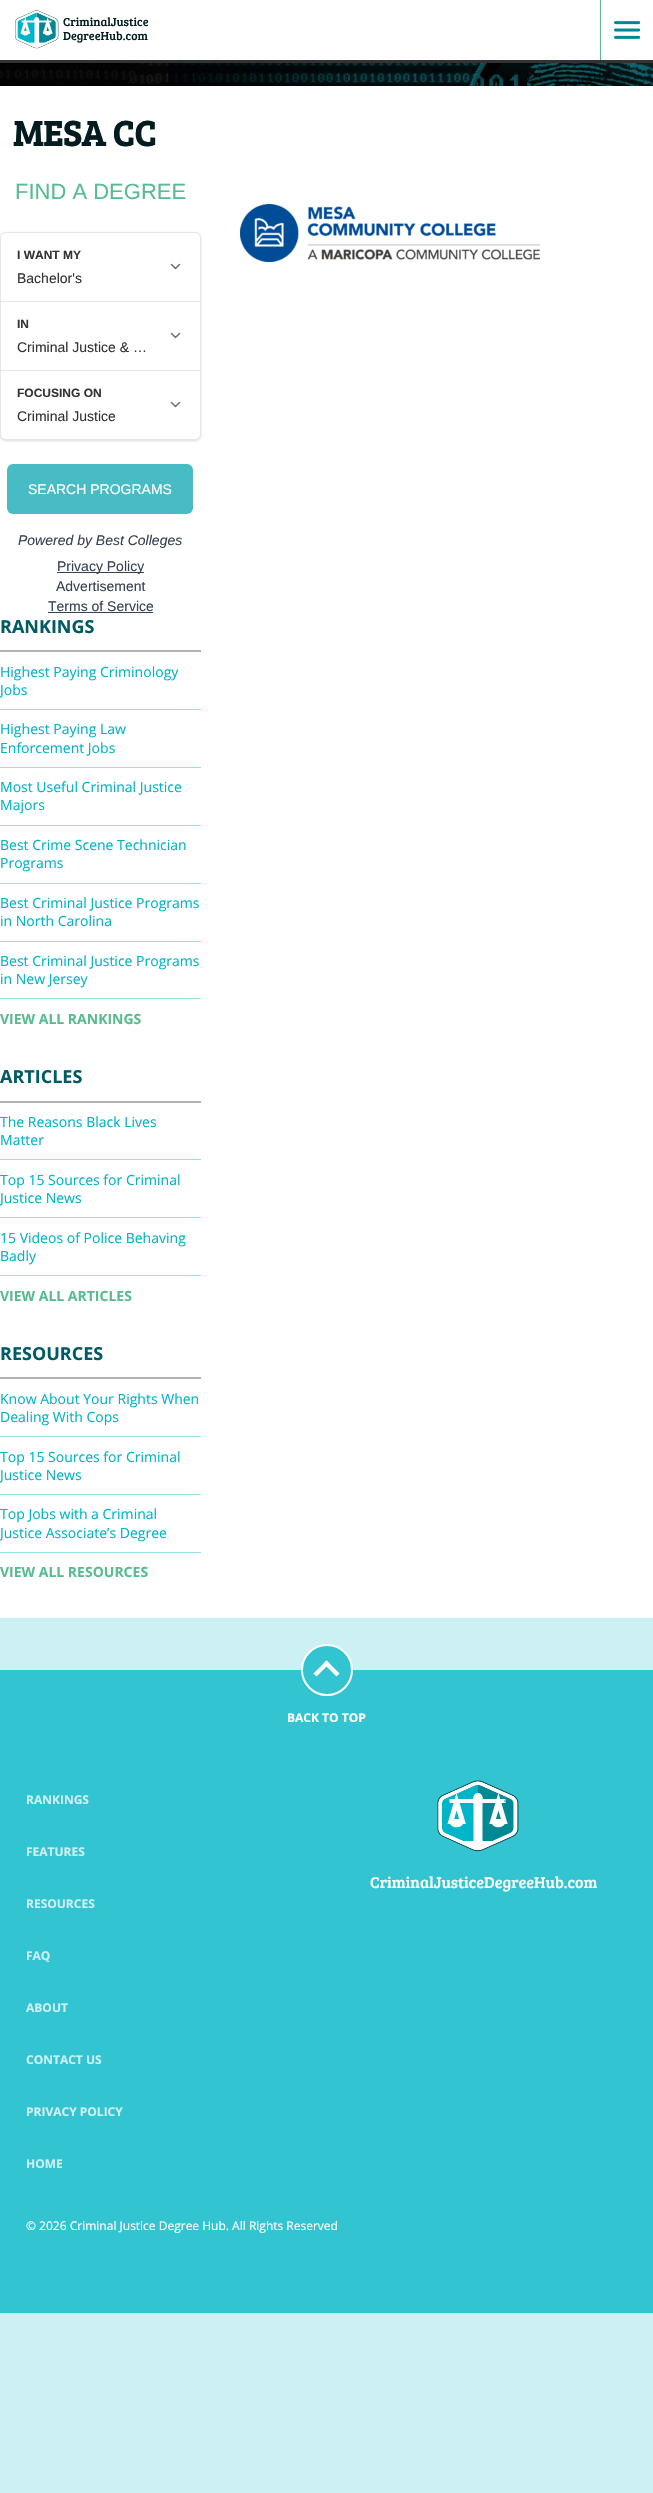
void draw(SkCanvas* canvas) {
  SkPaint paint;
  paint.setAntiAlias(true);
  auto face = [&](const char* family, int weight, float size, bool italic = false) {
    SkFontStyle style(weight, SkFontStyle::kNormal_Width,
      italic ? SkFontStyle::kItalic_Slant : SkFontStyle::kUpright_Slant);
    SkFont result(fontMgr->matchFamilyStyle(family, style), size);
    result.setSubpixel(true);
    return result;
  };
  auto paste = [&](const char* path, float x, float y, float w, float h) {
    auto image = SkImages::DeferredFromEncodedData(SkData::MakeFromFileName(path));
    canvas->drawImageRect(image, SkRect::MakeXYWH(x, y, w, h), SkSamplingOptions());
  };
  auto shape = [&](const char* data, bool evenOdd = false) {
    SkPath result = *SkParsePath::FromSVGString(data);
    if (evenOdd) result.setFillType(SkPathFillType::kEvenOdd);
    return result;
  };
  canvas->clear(0xffccf0f4);
  paint.setColor(0xffffffff);
  canvas->drawRect(SkRect::MakeXYWH(0, 0, 653, 1618), paint);
  paint.setColor(0xff333333);
  canvas->drawRect(SkRect::MakeXYWH(0, 60, 653, 3), paint);
  paste("img/1.png", 15, 10, 44, 39);
  paint.setColor(0xff57bc90);
  canvas->drawRect(SkRect::MakeXYWH(600, 0, 1, 60), paint);
  paste("img/2.png", 614, 21, 26, 18);
  paste("img/3.png", 0, 63, 653, 23);
  paint.setColor(0x1a000000);
  paint.setMaskFilter(SkMaskFilter::MakeBlur(kNormal_SkBlurStyle, 1));
  canvas->drawRoundRect(SkRect::MakeXYWH(1, 234, 199, 206), 5, 5, paint);
  paint.setMaskFilter(nullptr);
  paint.setMaskFilter(SkMaskFilter::MakeBlur(kNormal_SkBlurStyle, 1.5f));
  canvas->drawRoundRect(SkRect::MakeXYWH(0, 233, 201, 208), 6, 6, paint);
  paint.setMaskFilter(nullptr);
  paint.setColor(0xffffffff);
  canvas->drawRoundRect(SkRect::MakeXYWH(0.5f, 232.5f, 200, 207), 5.5f, 5.5f, paint);
  paint.setStroke(true);
  paint.setStrokeWidth(1);
  paint.setColor(0xffe5e7eb);
  canvas->drawRoundRect(SkRect::MakeXYWH(0.5f, 232.5f, 200, 207), 5.5f, 5.5f, paint);
  paint.setStroke(false);
  canvas->drawRect(SkRect::MakeXYWH(1, 301, 199, 1), paint);
  paint.setStroke(true);
  paint.setStrokeWidth(1.6f);
  paint.setStrokeCap(SkPaint::kRound_Cap);
  paint.setStrokeJoin(SkPaint::kRound_Join);
  paint.setColor(0xff6b7280);
  canvas->drawPath(shape("M171.5 264.5L175.5 268.5L179.5 264.5"), paint);
  paint.setStroke(false);
  paint.setColor(0xffe5e7eb);
  canvas->drawRect(SkRect::MakeXYWH(1, 370, 199, 1), paint);
  paint.setStroke(true);
  paint.setColor(0xff6b7280);
  canvas->drawPath(shape("M171.5 333.5L175.5 337.5L179.5 333.5"), paint);
  canvas->drawPath(shape("M171.5 402.5L175.5 406.5L179.5 402.5"), paint);
  paint.setStroke(false);
  paint.setColor(0xff47bcc4);
  canvas->drawRoundRect(SkRect::MakeXYWH(7, 464, 186, 50), 6, 6, paint);
  {
    const struct { float x, y, w, h; SkColor color; } items[] = {
      {57, 572, 87, 1, 0xff374151},
      {48, 612, 105, 1, 0xff374151},
      {0, 650, 201, 2, 0xffafb4b0},
      {0, 709, 201, 1, 0xff99e1e9},
      {0, 767, 201, 1, 0xff99e1e9},
      {0, 825, 201, 1, 0xff99e1e9},
      {0, 883, 201, 1, 0xff99e1e9},
      {0, 941, 201, 1, 0xff99e1e9},
      {0, 998, 201, 1, 0xff99e1e9},
      {0, 1101, 201, 2, 0xffafb4b0},
      {0, 1159, 201, 1, 0xff99e1e9},
      {0, 1217, 201, 1, 0xff99e1e9},
      {0, 1275, 201, 1, 0xff99e1e9},
      {0, 1377, 201, 2, 0xffafb4b0},
      {0, 1436, 201, 1, 0xff99e1e9},
      {0, 1494, 201, 1, 0xff99e1e9},
      {0, 1552, 201, 1, 0xff99e1e9},
    };
    for (auto [x, y, w, h, color] : items) {
      paint.setColor(color);
      canvas->drawRect(SkRect::MakeXYWH(x, y, w, h), paint);
    }
  }
  paste("img/4.png", 240, 204, 300, 58);
  paint.setColor(0xff33c4d2);
  canvas->drawRect(SkRect::MakeXYWH(0, 1670, 653, 643), paint);
  canvas->drawCircle(327, 1670, 25, paint);
  paint.setStroke(true);
  paint.setStrokeWidth(2);
  paint.setStrokeCap(SkPaint::kButt_Cap);
  paint.setStrokeJoin(SkPaint::kMiter_Join);
  paint.setColor(0xffffffff);
  canvas->drawCircle(327, 1670, 25, paint);
  paint.setStroke(false);
  canvas->drawPath(shape("M313.5 1673.5L326.5 1660.5L329.5 1663.5L316.5 1676.5Z"), paint);
  canvas->drawPath(shape("M323.5 1663.5L326.5 1660.5L339.5 1673.5L336.5 1676.5Z"), paint);
  paste("img/5.png", 437, 1780, 82, 72);
  auto f0 = face("Bree Serif", 400, 12);
  paint.setColor(0xff031c1f);
  canvas->drawString("CriminalJustice", 63, 26, f0, paint);
  canvas->drawString("DegreeHub.com", 63, 40, f0, paint);
  auto f1 = face("Bree Serif", 700, 36);
  canvas->drawString("MESA CC", 13, 146, f1, paint);
  auto f2 = face("Liberation Sans", 400, 22);
  paint.setColor(0xff57bc90);
  canvas->drawString("FIND A DEGREE", 15, 199, f2, paint);
  auto f3 = face("Liberation Sans", 700, 12);
  paint.setColor(0xff333333);
  canvas->drawString("I WANT MY", 17, 259, f3, paint);
  auto f4 = face("Liberation Sans", 400, 14);
  canvas->drawString("Bachelor's", 17, 283, f4, paint);
  canvas->drawString("IN", 17, 328, f3, paint);
  canvas->drawString("Criminal Justice & …", 17, 352, f4, paint);
  canvas->drawString("FOCUSING ON", 17, 397, f3, paint);
  canvas->drawString("Criminal Justice", 17, 421, f4, paint);
  paint.setColor(0xffffffff);
  canvas->drawString("SEARCH PROGRAMS", 28, 494, f4, paint);
  auto f5 = face("Liberation Sans", 400, 14, true);
  paint.setColor(0xff374151);
  canvas->drawString("Powered by Best Colleges", 18, 545, f5, paint);
  {
    const struct { const char* s; float x, y; } items[] = {
      {"Privacy Policy", 57, 571},
      {"Advertisement", 56, 591},
      {"Terms of Service", 48, 611},
    };
    for (auto [s, x, y] : items) {
      canvas->drawString(s, x, y, f4, paint);
    }
  }
  auto f6 = face("Open Sans", 700, 18);
  paint.setColor(0xff005b64);
  canvas->drawString("RANKINGS", 0, 633, f6, paint);
  auto f7 = face("Open Sans", 400, 14);
  paint.setColor(0xff00b5c7);
  {
    const struct { const char* s; float x, y; } items[] = {
      {"Highest Paying Criminology", 0, 677},
      {"Jobs", 0, 695},
      {"Highest Paying Law", 0, 734},
      {"Enforcement Jobs", 0, 753},
      {"Most Useful Criminal Justice", 0, 792},
      {"Majors", 0, 810},
      {"Best Crime Scene Technician", 0, 850},
      {"Programs", 0, 868},
      {"Best Criminal Justice Programs", 0, 908},
      {"in North Carolina", 0, 926},
      {"Best Criminal Justice Programs", 0, 966},
      {"in New Jersey", 0, 984},
    };
    for (auto [s, x, y] : items) {
      canvas->drawString(s, x, y, f7, paint);
    }
  }
  auto f8 = face("Open Sans", 700, 14);
  paint.setColor(0xff57bc90);
  canvas->drawString("VIEW ALL RANKINGS", 0, 1024, f8, paint);
  paint.setColor(0xff005b64);
  canvas->drawString("ARTICLES", 0, 1083, f6, paint);
  paint.setColor(0xff00b5c7);
  {
    const struct { const char* s; float x, y; } items[] = {
      {"The Reasons Black Lives", 0, 1127},
      {"Matter", 0, 1145},
      {"Top 15 Sources for Criminal", 0, 1185},
      {"Justice News", 0, 1203},
      {"15 Videos of Police Behaving", 0, 1243},
      {"Badly", 0, 1261},
    };
    for (auto [s, x, y] : items) {
      canvas->drawString(s, x, y, f7, paint);
    }
  }
  paint.setColor(0xff57bc90);
  canvas->drawString("VIEW ALL ARTICLES", 0, 1301, f8, paint);
  paint.setColor(0xff005b64);
  canvas->drawString("RESOURCES", 0, 1360, f6, paint);
  paint.setColor(0xff00b5c7);
  {
    const struct { const char* s; float x, y; } items[] = {
      {"Know About Your Rights When", 0, 1404},
      {"Dealing With Cops", 0, 1422},
      {"Top 15 Sources for Criminal", 0, 1462},
      {"Justice News", 0, 1480},
      {"Top Jobs with a Criminal", 0, 1519},
      {"Justice Associate’s Degree", 0, 1538},
    };
    for (auto [s, x, y] : items) {
      canvas->drawString(s, x, y, f7, paint);
    }
  }
  paint.setColor(0xff57bc90);
  canvas->drawString("VIEW ALL RESOURCES", 0, 1577, f8, paint);
  auto f9 = face("Open Sans", 700, 12);
  paint.setColor(0xffffffff);
  canvas->drawString("BACK TO TOP", 287, 1722, f9, paint);
  paint.setColor(0xffccf0f4);
  {
    const struct { const char* s; float x, y; } items[] = {
      {"RANKINGS", 26, 1804},
      {"FEATURES", 26, 1856},
      {"RESOURCES", 26, 1908},
      {"FAQ", 26, 1960},
      {"ABOUT", 26, 2012},
      {"CONTACT US", 26, 2064},
      {"PRIVACY POLICY", 26, 2116},
      {"HOME", 26, 2168},
    };
    for (auto [s, x, y] : items) {
      canvas->drawString(s, x, y, f9, paint);
    }
  }
  auto f10 = face("Bree Serif", 400, 16);
  paint.setColor(0xffffffff);
  canvas->drawString("CriminalJusticeDegreeHub.com", 370, 1888, f10, paint);
  auto f11 = face("Open Sans", 400, 12);
  canvas->drawString("© 2026 Criminal Justice Degree Hub. All Rights Reserved", 26, 2230, f11, paint);
}
